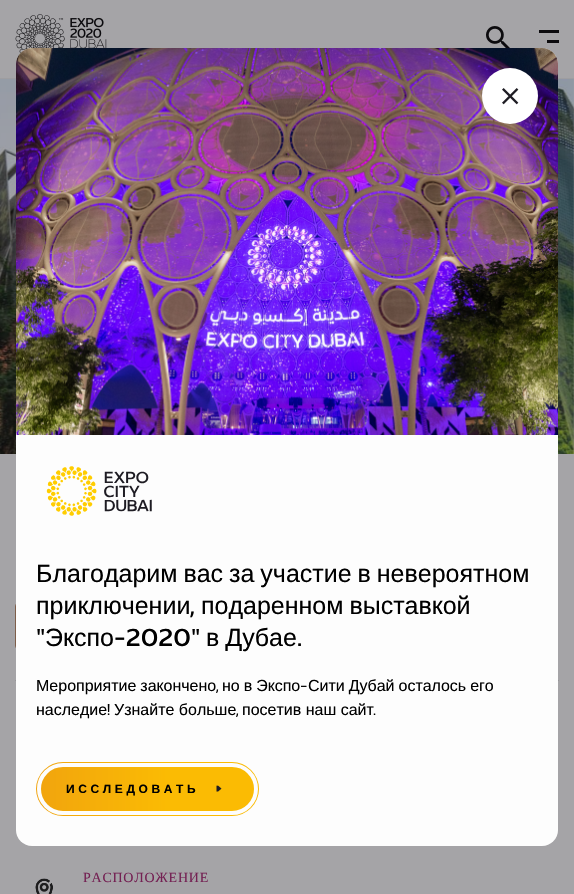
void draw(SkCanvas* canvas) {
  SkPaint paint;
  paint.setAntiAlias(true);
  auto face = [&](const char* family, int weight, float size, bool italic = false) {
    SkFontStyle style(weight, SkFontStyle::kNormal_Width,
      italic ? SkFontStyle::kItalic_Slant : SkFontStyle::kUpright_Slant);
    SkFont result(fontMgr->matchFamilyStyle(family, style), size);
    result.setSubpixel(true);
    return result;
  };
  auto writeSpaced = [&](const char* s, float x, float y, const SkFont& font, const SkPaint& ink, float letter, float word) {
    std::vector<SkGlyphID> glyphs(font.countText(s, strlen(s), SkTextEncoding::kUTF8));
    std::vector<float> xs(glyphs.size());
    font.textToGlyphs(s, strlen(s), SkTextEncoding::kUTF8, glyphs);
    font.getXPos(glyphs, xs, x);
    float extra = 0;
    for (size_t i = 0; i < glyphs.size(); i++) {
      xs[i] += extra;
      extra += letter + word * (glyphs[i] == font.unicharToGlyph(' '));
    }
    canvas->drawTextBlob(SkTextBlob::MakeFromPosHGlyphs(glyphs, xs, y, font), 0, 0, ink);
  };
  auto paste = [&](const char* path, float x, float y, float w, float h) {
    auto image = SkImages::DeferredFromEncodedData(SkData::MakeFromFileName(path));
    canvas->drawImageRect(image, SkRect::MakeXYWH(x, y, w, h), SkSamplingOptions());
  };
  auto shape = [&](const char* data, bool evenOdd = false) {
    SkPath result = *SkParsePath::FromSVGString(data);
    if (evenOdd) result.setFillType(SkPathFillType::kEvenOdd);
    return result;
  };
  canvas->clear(0xffa5a4a7);
  paint.setColor(0xff9e9da0);
  canvas->drawRect(SkRect::MakeXYWH(0, 78, 574, 1), paint);
  paste("img/5.png", 15, 14, 92, 40);
  paste("img/7.png", 0, 79, 574, 375);
  paint.setColor(0xff969598);
  canvas->drawRect(SkRect::MakeXYWH(15, 680, 544, 1), paint);
  paint.setColor(0xfffdfdfd);
  canvas->drawRoundRect(SkRect::MakeXYWH(16, 48, 542, 798), 16, 16, paint);
  paste("img/1.png", 16, 48, 542, 387);
  paint.setColor(0xffffffff);
  canvas->drawCircle(510, 96, 28, paint);
  paste("img/2.png", 502, 88, 17, 17);
  paste("img/3.png", 46, 466, 106, 50);
  {
    const SkColor colors[] = {0xfff1a40e, 0xfffbbb03};
    const float stops[] = {0, 0.59f};
    const SkPoint ends[] = {{36, 789}, {259, 789}};
    paint.setShader(SkGradientShader::MakeLinear(ends, colors, stops, 2, SkTileMode::kClamp));
    paint.setAlpha(255);
  }
  canvas->drawRoundRect(SkRect::MakeXYWH(36, 762, 223, 54), 27, 27, paint);
  paste("img/4.png", 216, 785, 6, 7);
  paint.setStroke(true);
  paint.setStrokeWidth(4);
  paint.setShader(nullptr);
  paint.setColor(0xfffdfdfd);
  canvas->drawRoundRect(SkRect::MakeXYWH(39, 765, 217, 48), 24, 24, paint);
  paste("img/6.png", 486, 26, 24, 22);
  paint.setStroke(false);
  paint.setColor(0xff0c0b0e);
  canvas->drawRect(SkRect::MakeXYWH(539, 30, 20, 3), paint);
  canvas->drawRect(SkRect::MakeXYWH(547, 40, 12, 3), paint);
  canvas->save();
  canvas->clipPath(shape("M20 602H282C285 602 287 604 287 607V645C287 648 285 650 282 650H20C17 650 15 648 15 645V607C15 604 17 602 20 602Z"), true);
  {
    const SkColor colors[] = {0xff56330e, 0xffa17a68, 0xff7d5c4e, 0xff663c37, 0xff9f7869, 0xff9a7464, 0xff7d5d49};
    const float stops[] = {0, 0.19f, 0.33f, 0.57f, 0.69f, 0.77f, 1};
    SkMatrix m = SkMatrix::Translate(-117, 626).preScale(134, 44);
    paint.setShader(SkGradientShader::MakeRadial({0, 0}, 1, colors, stops, 7, SkTileMode::kClamp, 0, &m));
    paint.setAlpha(255);
  }
  canvas->drawRect(SkRect::MakeXYWH(15, 604, 1, 44), paint);
  canvas->restore();
  paste("img/8.png", 35, 878, 18, 16);
  auto f0 = face("Liberation Sans", 400, 25);
  paint.setShader(nullptr);
  paint.setColor(0xff000000);
  writeSpaced("Благодарим вас за участие в невероятном", 36, 582, f0, paint, 0, -1);
  canvas->drawString("приключении", 36, 614, f0, paint);
  auto f1 = face("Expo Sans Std", 500, 25);
  canvas->drawString(",", 190, 614, f1, paint);
  writeSpaced("подаренном выставкой", 201, 614, f0, paint, 0, -1);
  canvas->drawString("\"", 36, 646, f1, paint);
  canvas->drawString("Экспо", 45, 646, f0, paint);
  canvas->drawString("-2020\"", 114, 646, f1, paint);
  writeSpaced("в Дубае", 206, 646, f0, paint, 0, -1);
  canvas->drawString(".", 297, 646, f1, paint);
  auto f2 = face("Liberation Sans", 400, 16);
  writeSpaced("Мероприятие закончено", 36, 691, f2, paint, 0, -0.5f);
  writeSpaced("но в Экспо", 222, 691, f2, paint, 0, -0.5f);
  auto f3 = face("Expo Sans Std", 400, 16);
  canvas->drawString("-", 300, 691, f3, paint);
  writeSpaced("Сити Дубай осталось его", 308, 691, f2, paint, 0, -0.5f);
  canvas->drawString(",", 216, 691, f3, paint);
  canvas->drawString("наследие", 36, 715, f2, paint);
  canvas->drawString("!", 107, 715, f3, paint);
  canvas->drawString("Узнайте больше", 114, 715, f2, paint);
  canvas->drawString(",", 236, 715, f3, paint);
  canvas->drawString("посетив наш сайт", 242, 715, f2, paint);
  canvas->drawString(".", 373, 715, f3, paint);
  auto f4 = face("Liberation Sans", 700, 12);
  writeSpaced("ИССЛЕДОВАТЬ", 66, 793, f4, paint, 3.6f, 0);
  auto f5 = face("Liberation Serif", 400, 14);
  paint.setColor(0xff742153);
  writeSpaced("РАСПОЛОЖЕНИЕ", 83, 882, f5, paint, 0.75f, 0);
}
